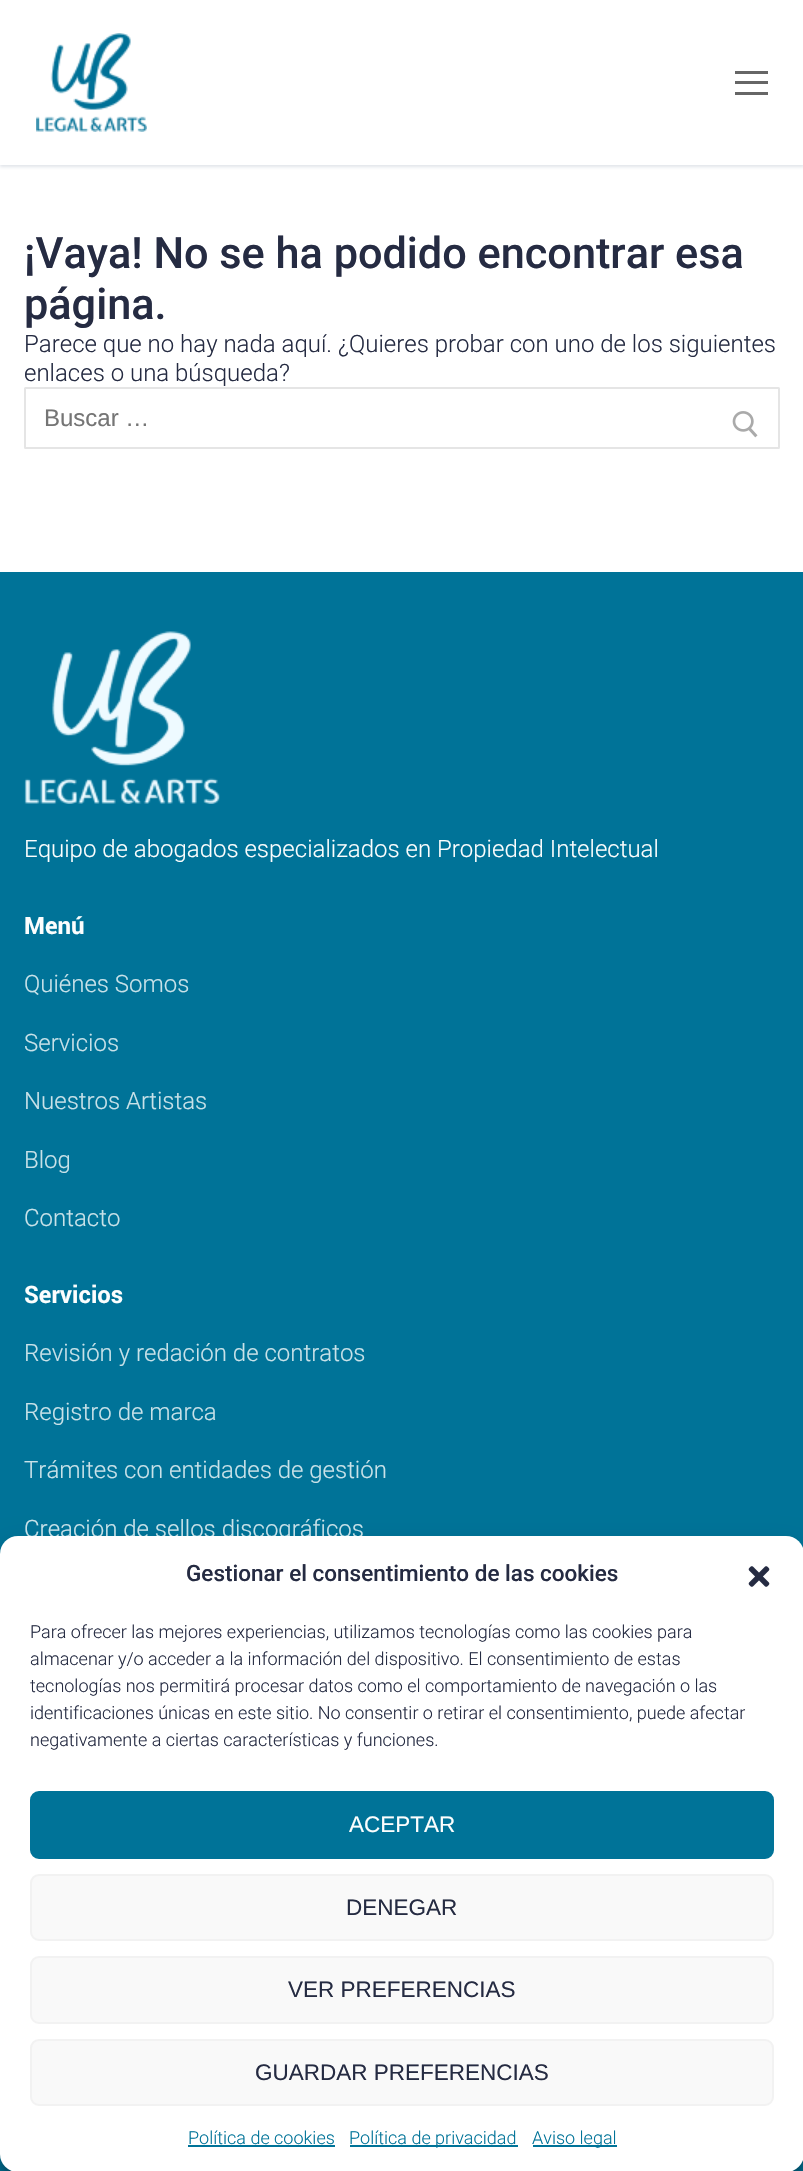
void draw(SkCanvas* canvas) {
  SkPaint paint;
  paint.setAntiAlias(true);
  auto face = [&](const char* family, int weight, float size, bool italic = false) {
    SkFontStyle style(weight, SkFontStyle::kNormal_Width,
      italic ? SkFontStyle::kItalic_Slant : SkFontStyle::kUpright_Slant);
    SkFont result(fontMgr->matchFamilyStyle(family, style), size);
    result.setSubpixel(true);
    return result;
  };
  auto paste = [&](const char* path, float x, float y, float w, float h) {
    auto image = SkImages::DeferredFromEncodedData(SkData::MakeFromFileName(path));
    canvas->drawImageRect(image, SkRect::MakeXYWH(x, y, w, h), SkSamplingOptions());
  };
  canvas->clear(0xffffffff);
  canvas->save();
  canvas->clipRect(SkRect::MakeXYWH(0, 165, 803, 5));
  paint.setColor(0xffe1e5ea);
  paint.setMaskFilter(SkMaskFilter::MakeBlur(kNormal_SkBlurStyle, 1.5f));
  canvas->drawRect(SkRect::MakeXYWH(0, 2, 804, 165), paint);
  paint.setMaskFilter(nullptr);
  canvas->restore();
  paste("img/1.png", 36, 33, 111, 99);
  {
    const struct { float x, y, w, h; SkColor color; } items[] = {
      {735, 81, 33, 3, 0xff666666},
      {735, 71, 33, 3, 0xff666666},
      {735, 92, 33, 3, 0xff666666},
    };
    for (auto [x, y, w, h, color] : items) {
      paint.setColor(color);
      canvas->drawRect(SkRect::MakeXYWH(x, y, w, h), paint);
    }
  }
  paint.setStroke(true);
  paint.setStrokeWidth(2);
  paint.setColor(0xffe5e5e5);
  canvas->drawRoundRect(SkRect::MakeXYWH(25, 388, 754, 60), 0.5f, 0.5f, paint);
  paste("img/2.png", 732, 411, 26, 27);
  paint.setStroke(false);
  paint.setColor(0xff007398);
  canvas->drawRect(SkRect::MakeXYWH(0, 572, 803, 1599), paint);
  paste("img/3.png", 24, 631, 196, 173);
  paint.setColor(0x3b000000);
  paint.setMaskFilter(SkMaskFilter::MakeBlur(kNormal_SkBlurStyle, 4.5f));
  canvas->drawRoundRect(SkRect::MakeXYWH(0, 1545, 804, 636), 18, 18, paint);
  paint.setMaskFilter(nullptr);
  paint.setColor(0x30000000);
  paint.setMaskFilter(SkMaskFilter::MakeBlur(kNormal_SkBlurStyle, 15));
  canvas->drawRoundRect(SkRect::MakeXYWH(0, 1551, 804, 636), 18, 18, paint);
  paint.setMaskFilter(nullptr);
  auto f0 = face("Roboto", 500, 43.25f);
  paint.setColor(0xff252b42);
  canvas->drawString("¡Vaya! No se ha podido encontrar esa", 24, 268, f0, paint);
  canvas->drawString("página.", 24, 319, f0, paint);
  auto f1 = face("Roboto", 300, 24);
  canvas->drawString("Parece que no hay nada aquí. ¿Quieres probar con uno de los siguientes", 24, 352, f1, paint);
  canvas->drawString("enlaces o una búsqueda?", 24, 381, f1, paint);
  auto f2 = face("Liberation Sans", 400, 24);
  paint.setColor(0xff757575);
  canvas->drawString("Buscar …", 44, 426, f2, paint);
  paint.setColor(0xfffcfefe);
  canvas->drawString("Equipo de abogados especializados en Propiedad Intelectual", 24, 857, f1, paint);
  auto f3 = face("Roboto", 700, 24);
  canvas->drawString("Menú", 24, 934, f3, paint);
  paint.setColor(0xffc9e2e9);
  {
    const struct { const char* s; float x, y; } items[] = {
      {"Quiénes Somos", 24, 992},
      {"Servicios", 24, 1051},
      {"Nuestros Artistas", 24, 1109},
      {"Blog", 24, 1168},
      {"Contacto", 24, 1226},
    };
    for (auto [s, x, y] : items) {
      canvas->drawString(s, x, y, f1, paint);
    }
  }
  paint.setColor(0xfffcfefe);
  canvas->drawString("Servicios", 24, 1303, f3, paint);
  paint.setColor(0xffc9e2e9);
  {
    const struct { const char* s; float x, y; } items[] = {
      {"Revisión y redación de contratos", 24, 1361},
      {"Registro de marca", 24, 1420},
      {"Trámites con entidades de gestión", 24, 1478},
      {"Creación de sellos discográficos", 24, 1537},
    };
    for (auto [s, x, y] : items) {
      canvas->drawString(s, x, y, f1, paint);
    }
  }
  paint.setColor(0xffffffff);
  canvas->drawRoundRect(SkRect::MakeXYWH(0, 1536, 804, 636), 18, 18, paint);
  auto f4 = face("Roboto", 500, 22.5f);
  paint.setColor(0xff252b42);
  canvas->drawString("Gestionar el consentimiento de las cookies", 186, 1581, f4, paint);
  paste("img/4.png", 748, 1566, 22, 21);
  auto f5 = face("Roboto", 300, 18);
  {
    const struct { const char* s; float x, y; } items[] = {
      {"Para ofrecer las mejores experiencias, utilizamos tecnologías como las cookies para", 30, 1638},
      {"almacenar y/o acceder a la información del dispositivo. El consentimiento de estas", 30, 1665},
      {"tecnologías nos permitirá procesar datos como el comportamiento de navegación o las", 30, 1692},
      {"identificaciones únicas en este sitio. No consentir o retirar el consentimiento, puede afectar", 30, 1719},
      {"negativamente a ciertas características y funciones.", 30, 1746},
    };
    for (auto [s, x, y] : items) {
      canvas->drawString(s, x, y, f5, paint);
    }
  }
  paint.setColor(0xff007398);
  canvas->drawRoundRect(SkRect::MakeXYWH(31, 1792, 742, 66), 8, 8, paint);
  paint.setStroke(true);
  canvas->drawRoundRect(SkRect::MakeXYWH(31, 1792, 742, 66), 8, 8, paint);
  auto f6 = face("Liberation Sans", 400, 22.5f);
  paint.setStroke(false);
  paint.setColor(0xfffcfefe);
  canvas->drawString("ACEPTAR", 349, 1832, f6, paint);
  paint.setColor(0xfff9f9f9);
  canvas->drawRoundRect(SkRect::MakeXYWH(31, 1875, 742, 65), 8, 8, paint);
  paint.setStroke(true);
  paint.setColor(0xfff2f2f2);
  canvas->drawRoundRect(SkRect::MakeXYWH(31, 1875, 742, 65), 8, 8, paint);
  paint.setStroke(false);
  paint.setColor(0xff252b42);
  canvas->drawString("DENEGAR", 346, 1915, f6, paint);
  paint.setColor(0xfff9f9f9);
  canvas->drawRoundRect(SkRect::MakeXYWH(31, 1957, 742, 66), 8, 8, paint);
  paint.setStroke(true);
  paint.setColor(0xfff2f2f2);
  canvas->drawRoundRect(SkRect::MakeXYWH(31, 1957, 742, 66), 8, 8, paint);
  paint.setStroke(false);
  paint.setColor(0xff252b42);
  canvas->drawString("VER PREFERENCIAS", 288, 1997, f6, paint);
  paint.setColor(0xfff9f9f9);
  canvas->drawRoundRect(SkRect::MakeXYWH(31, 2040, 742, 65), 8, 8, paint);
  paint.setStroke(true);
  paint.setColor(0xfff2f2f2);
  canvas->drawRoundRect(SkRect::MakeXYWH(31, 2040, 742, 65), 8, 8, paint);
  paint.setStroke(false);
  paint.setColor(0xff252b42);
  canvas->drawString("GUARDAR PREFERENCIAS", 255, 2080, f6, paint);
  paint.setColor(0xff007398);
  canvas->drawString("Política de cookies", 188, 2144, f5, paint);
  canvas->drawRect(SkRect::MakeXYWH(188, 2145, 147, 2), paint);
  canvas->drawRect(SkRect::MakeXYWH(350, 2145, 168, 2), paint);
  canvas->drawString("Política de privacidad", 349, 2144, f5, paint);
  canvas->drawRect(SkRect::MakeXYWH(533, 2145, 84, 2), paint);
  canvas->drawString("Aviso legal", 532, 2144, f5, paint);
}
